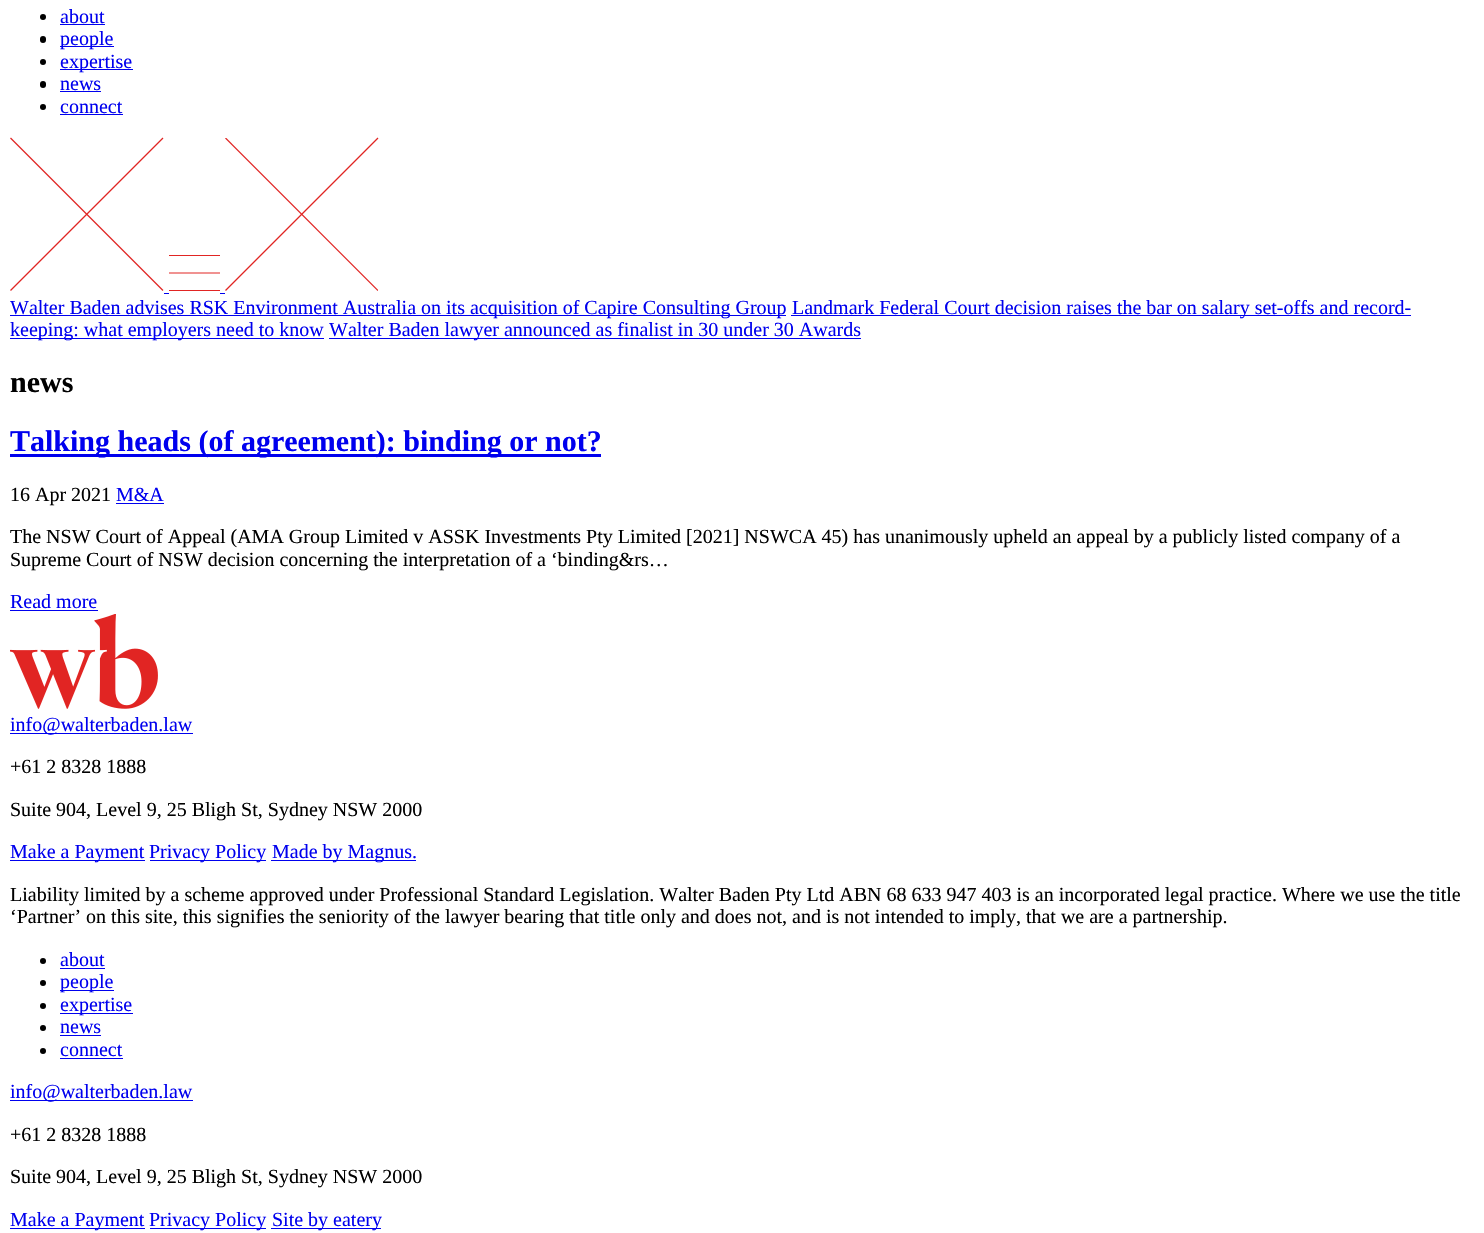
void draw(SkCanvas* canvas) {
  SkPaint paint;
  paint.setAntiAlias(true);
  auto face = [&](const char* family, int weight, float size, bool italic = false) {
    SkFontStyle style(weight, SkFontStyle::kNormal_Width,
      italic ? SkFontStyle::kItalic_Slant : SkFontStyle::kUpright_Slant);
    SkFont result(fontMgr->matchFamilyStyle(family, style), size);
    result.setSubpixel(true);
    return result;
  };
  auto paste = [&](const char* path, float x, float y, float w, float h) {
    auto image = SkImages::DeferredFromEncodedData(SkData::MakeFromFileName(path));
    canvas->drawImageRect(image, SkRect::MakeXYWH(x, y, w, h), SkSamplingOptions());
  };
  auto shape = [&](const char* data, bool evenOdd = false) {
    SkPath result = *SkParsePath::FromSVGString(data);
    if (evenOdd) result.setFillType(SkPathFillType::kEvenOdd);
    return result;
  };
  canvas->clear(0xffffffff);
  paint.setColor(0xff000000);
  canvas->drawCircle(43, 17, 3, paint);
  paint.setColor(0xff0000ee);
  canvas->drawRect(SkRect::MakeXYWH(60, 24, 45, 1), paint);
  paint.setColor(0xff000000);
  canvas->drawRoundRect(SkRect::MakeXYWH(40, 36, 6, 7), 3, 3, paint);
  paint.setColor(0xff0000ee);
  canvas->drawRect(SkRect::MakeXYWH(60, 46, 54, 1), paint);
  paint.setColor(0xff000000);
  canvas->drawCircle(43, 62, 3, paint);
  paint.setColor(0xff0000ee);
  canvas->drawRect(SkRect::MakeXYWH(60, 69, 73, 1), paint);
  paint.setColor(0xff000000);
  canvas->drawRoundRect(SkRect::MakeXYWH(40, 81, 6, 7), 3, 3, paint);
  paint.setColor(0xff0000ee);
  canvas->drawRect(SkRect::MakeXYWH(60, 91, 41, 1), paint);
  paint.setColor(0xff000000);
  canvas->drawCircle(43, 107, 3, paint);
  paint.setColor(0xff0000ee);
  canvas->drawRect(SkRect::MakeXYWH(60, 114, 63, 1), paint);
  paint.setStroke(true);
  paint.setStrokeWidth(1.2f);
  paint.setColor(0xffe12523);
  canvas->drawPath(shape("M10.5 138L163 290.5"), paint);
  canvas->drawPath(shape("M163 138L10.5 290.5"), paint);
  canvas->save();
  canvas->clipRect(SkRect::MakeXYWH(225, 138, 153, 153));
  canvas->drawPath(shape("M225.5 138L378 290.5"), paint);
  canvas->restore();
  paint.setStroke(false);
  canvas->drawRect(SkRect::MakeXYWH(169, 255, 51, 1), paint);
  paint.setStroke(true);
  canvas->drawPath(shape("M378 138L225.5 290.5"), paint);
  canvas->drawPath(shape("M169 273H220"), paint);
  paint.setStroke(false);
  {
    const struct { float x, y, w, h; SkColor color; } items[] = {
      {169, 290, 51, 1, 0xffe12523},
      {164, 293, 5, 1, 0xff0000ee},
      {220, 293, 5, 1, 0xff0000ee},
      {10, 315, 776, 1, 0xff0000ee},
      {791, 315, 620, 1, 0xff0000ee},
      {10, 338, 314, 1, 0xff0000ee},
      {329, 338, 532, 1, 0xff0000ee},
      {10, 454, 591, 3, 0xff0000ee},
      {116, 503, 48, 1, 0xff0000ee},
      {10, 610, 88, 1, 0xff0000ee},
    };
    for (auto [x, y, w, h, color] : items) {
      paint.setColor(color);
      canvas->drawRect(SkRect::MakeXYWH(x, y, w, h), paint);
    }
  }
  paste("img/1.png", 10, 614, 148, 95);
  {
    const struct { float x, y, w, h; SkColor color; } items[] = {
      {10, 733, 183, 1, 0xff0000ee},
      {10, 860, 135, 1, 0xff0000ee},
      {150, 860, 116, 1, 0xff0000ee},
      {271, 860, 145, 1, 0xff0000ee},
    };
    for (auto [x, y, w, h, color] : items) {
      paint.setColor(color);
      canvas->drawRect(SkRect::MakeXYWH(x, y, w, h), paint);
    }
  }
  paint.setColor(0xff000000);
  canvas->drawCircle(43, 961, 3, paint);
  paint.setColor(0xff0000ee);
  canvas->drawRect(SkRect::MakeXYWH(60, 968, 45, 1), paint);
  paint.setColor(0xff000000);
  canvas->drawCircle(43, 983, 3, paint);
  paint.setColor(0xff0000ee);
  canvas->drawRect(SkRect::MakeXYWH(60, 990, 54, 1), paint);
  paint.setColor(0xff000000);
  canvas->drawCircle(43, 1006, 3, paint);
  paint.setColor(0xff0000ee);
  canvas->drawRect(SkRect::MakeXYWH(60, 1013, 73, 1), paint);
  paint.setColor(0xff000000);
  canvas->drawCircle(43, 1028, 3, paint);
  paint.setColor(0xff0000ee);
  canvas->drawRect(SkRect::MakeXYWH(60, 1035, 41, 1), paint);
  paint.setColor(0xff000000);
  canvas->drawCircle(43, 1051, 3, paint);
  {
    const struct { float x, y, w, h; SkColor color; } items[] = {
      {60, 1058, 63, 1, 0xff0000ee},
      {10, 1100, 183, 1, 0xff0000ee},
      {10, 1228, 135, 1, 0xff0000ee},
      {150, 1228, 116, 1, 0xff0000ee},
      {271, 1228, 110, 1, 0xff0000ee},
    };
    for (auto [x, y, w, h, color] : items) {
      paint.setColor(color);
      canvas->drawRect(SkRect::MakeXYWH(x, y, w, h), paint);
    }
  }
  auto f0 = face("Liberation Serif", 400, 20);
  {
    const struct { const char* s; float x, y; } items[] = {
      {"about", 60, 23},
      {"people", 60, 45},
      {"expertise", 60, 68},
      {"news", 60, 90},
      {"connect", 60, 113},
      {"Walter Baden advises RSK Environment Australia on its acquisition of Capire Consulting Group", 10, 314},
      {"Landmark Federal Court decision raises the bar on salary set-offs and record-", 792, 314},
      {"keeping: what employers need to know", 10, 336},
      {"Walter Baden lawyer announced as finalist in 30 under 30 Awards", 329, 336},
    };
    for (auto [s, x, y] : items) {
      canvas->drawString(s, x, y, f0, paint);
    }
  }
  auto f1 = face("Liberation Serif", 700, 30);
  paint.setColor(0xff000000);
  canvas->drawString("news", 10, 392, f1, paint);
  paint.setColor(0xff0000ee);
  canvas->drawString("Talking heads (of agreement): binding or not?", 10, 451, f1, paint);
  paint.setColor(0xff000000);
  canvas->drawString("16 Apr 2021", 10, 501, f0, paint);
  paint.setColor(0xff0000ee);
  canvas->drawString("M&A", 116, 501, f0, paint);
  paint.setColor(0xff000000);
  canvas->drawString("The NSW Court of Appeal (AMA Group Limited v ASSK Investments Pty Limited [2021] NSWCA 45) has unanimously upheld an appeal by a publicly listed company of a", 10, 543, f0, paint);
  canvas->drawString("Supreme Court of NSW decision concerning the interpretation of a ‘binding&rs…", 10, 566, f0, paint);
  paint.setColor(0xff0000ee);
  canvas->drawString("Read more", 10, 608, f0, paint);
  canvas->drawString("info@walterbaden.law", 10, 731, f0, paint);
  paint.setColor(0xff000000);
  canvas->drawString("+61 2 8328 1888", 10, 773, f0, paint);
  canvas->drawString("Suite 904, Level 9, 25 Bligh St, Sydney NSW 2000", 10, 816, f0, paint);
  paint.setColor(0xff0000ee);
  {
    const struct { const char* s; float x, y; } items[] = {
      {"Make a Payment", 10, 858},
      {"Privacy Policy", 149, 858},
      {"Made by Magnus.", 272, 858},
    };
    for (auto [s, x, y] : items) {
      canvas->drawString(s, x, y, f0, paint);
    }
  }
  paint.setColor(0xff000000);
  canvas->drawString("Liability limited by a scheme approved under Professional Standard Legislation. Walter Baden Pty Ltd ABN 68 633 947 403 is an incorporated legal practice. Where we use the title", 10, 901, f0, paint);
  canvas->drawString("‘Partner’ on this site, this signifies the seniority of the lawyer bearing that title only and does not, and is not intended to imply, that we are a partnership.", 10, 923, f0, paint);
  paint.setColor(0xff0000ee);
  {
    const struct { const char* s; float x, y; } items[] = {
      {"about", 60, 966},
      {"people", 60, 988},
      {"expertise", 60, 1011},
      {"news", 60, 1033},
      {"connect", 60, 1056},
      {"info@walterbaden.law", 10, 1098},
    };
    for (auto [s, x, y] : items) {
      canvas->drawString(s, x, y, f0, paint);
    }
  }
  paint.setColor(0xff000000);
  canvas->drawString("+61 2 8328 1888", 10, 1141, f0, paint);
  canvas->drawString("Suite 904, Level 9, 25 Bligh St, Sydney NSW 2000", 10, 1183, f0, paint);
  paint.setColor(0xff0000ee);
  {
    const struct { const char* s; float x, y; } items[] = {
      {"Make a Payment", 10, 1226},
      {"Privacy Policy", 149, 1226},
      {"Site by eatery", 272, 1226},
    };
    for (auto [s, x, y] : items) {
      canvas->drawString(s, x, y, f0, paint);
    }
  }
}
